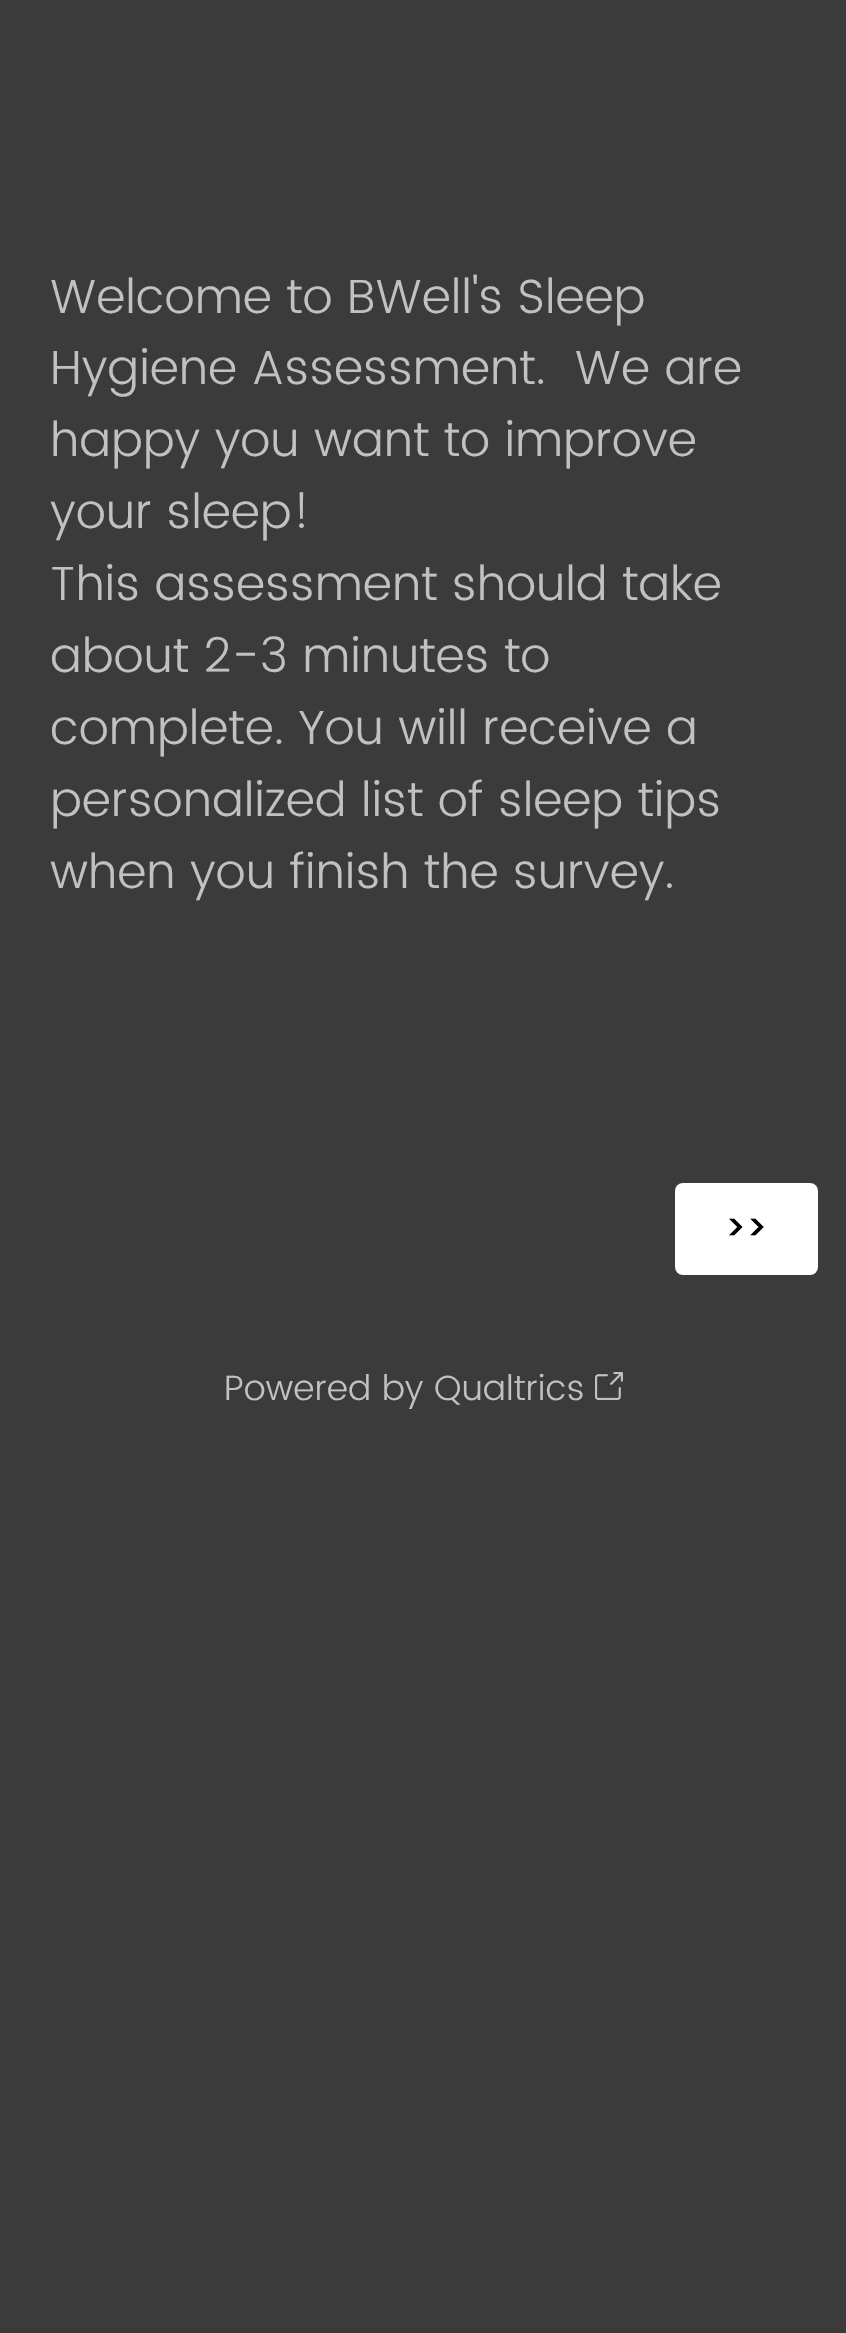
void draw(SkCanvas* canvas) {
  SkPaint paint;
  paint.setAntiAlias(true);
  auto face = [&](const char* family, int weight, float size, bool italic = false) {
    SkFontStyle style(weight, SkFontStyle::kNormal_Width,
      italic ? SkFontStyle::kItalic_Slant : SkFontStyle::kUpright_Slant);
    SkFont result(fontMgr->matchFamilyStyle(family, style), size);
    result.setSubpixel(true);
    return result;
  };
  auto paste = [&](const char* path, float x, float y, float w, float h) {
    auto image = SkImages::DeferredFromEncodedData(SkData::MakeFromFileName(path));
    canvas->drawImageRect(image, SkRect::MakeXYWH(x, y, w, h), SkSamplingOptions());
  };
  canvas->clear(0xff3c3b3b);
  paint.setColor(0xffffffff);
  canvas->drawRoundRect(SkRect::MakeXYWH(675, 1183, 143, 92), 8, 8, paint);
  paste("img/1.png", 595, 1372, 28, 28);
  auto f0 = face("Poppins", 300, 48);
  paint.setColor(0xffc1c1c1);
  {
    const struct { const char* s; float x, y; } items[] = {
      {"Welcome to BWell's Sleep", 50, 313},
      {"Hygiene Assessment.  We are", 50, 384},
      {"happy you want to improve", 50, 456},
      {"your sleep!", 50, 528},
      {"This assessment should take", 50, 600},
      {"about 2-3 minutes to", 50, 672},
      {"complete. You will receive a", 50, 744},
      {"personalized list of sleep tips", 50, 816},
      {"when you finish the survey.", 50, 888},
    };
    for (auto [s, x, y] : items) {
      canvas->drawString(s, x, y, f0, paint);
    }
  }
  auto f1 = face("Poppins", 500, 36);
  paint.setColor(0xff000000);
  canvas->drawString(">>", 725, 1240, f1, paint);
  auto f2 = face("Poppins", 300, 35);
  paint.setColor(0xffc1c1c1);
  canvas->drawString("Powered by Qualtrics", 224, 1400, f2, paint);
}
